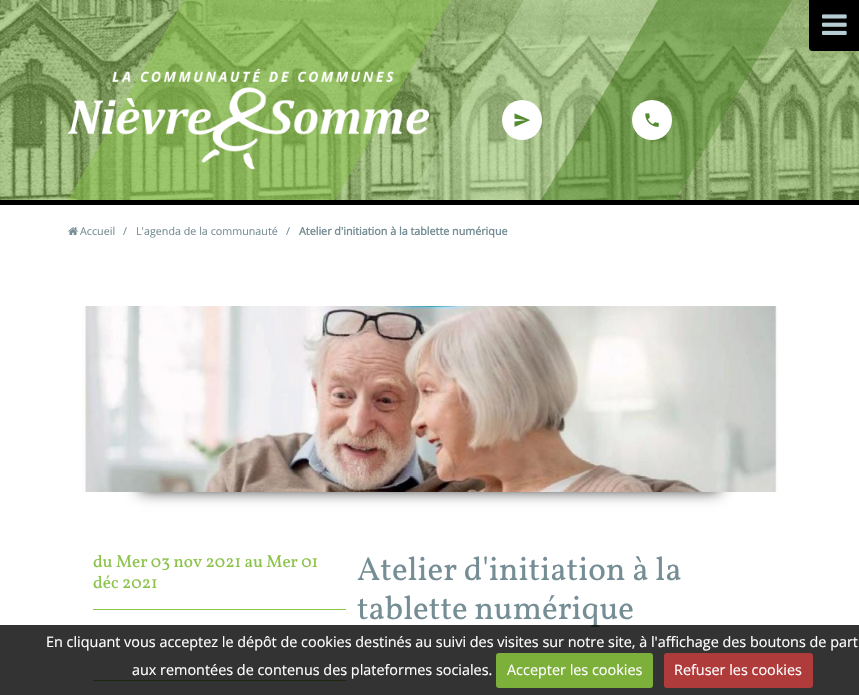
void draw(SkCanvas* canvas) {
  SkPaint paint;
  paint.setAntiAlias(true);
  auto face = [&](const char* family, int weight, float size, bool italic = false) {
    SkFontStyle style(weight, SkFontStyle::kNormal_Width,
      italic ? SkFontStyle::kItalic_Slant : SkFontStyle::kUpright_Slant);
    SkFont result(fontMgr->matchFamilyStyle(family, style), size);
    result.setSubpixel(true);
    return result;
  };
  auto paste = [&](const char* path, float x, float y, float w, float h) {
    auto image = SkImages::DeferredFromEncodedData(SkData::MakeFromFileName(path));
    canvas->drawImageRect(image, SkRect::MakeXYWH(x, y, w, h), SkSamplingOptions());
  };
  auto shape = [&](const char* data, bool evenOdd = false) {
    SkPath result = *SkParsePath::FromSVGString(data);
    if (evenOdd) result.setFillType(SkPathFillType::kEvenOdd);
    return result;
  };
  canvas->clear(0xffffffff);
  paste("img/1.png", 0, 0, 859, 200);
  paint.setColor(0xff000000);
  canvas->drawRect(SkRect::MakeXYWH(0, 200, 859, 5), paint);
  paint.setColor(0x808bc34a);
  canvas->drawPath(shape("M335 200H68L184 0H451Z"), paint);
  paint.setColor(0x4ddcedc8);
  canvas->drawPath(shape("M541 200H408L524 0H658Z"), paint);
  paint.setColor(0x80558b2f);
  canvas->drawPath(shape("M675 200H542L658 0H792Z"), paint);
  paste("img/2.png", 68, 68, 361, 102);
  paint.setColor(0xffffffff);
  canvas->drawCircle(522, 120, 20, paint);
  paste("img/3.png", 514, 113, 17, 14);
  canvas->drawCircle(652, 120, 20, paint);
  paste("img/4.png", 645, 113, 14, 14);
  paint.setColor(0xff000000);
  canvas->drawPath(shape("M809 0H859V51H812C810.5 51 809 49.5 809 48Z"), paint);
  paste("img/5.png", 822, 14, 25, 21);
  paste("img/6.png", 68, 227, 10, 8);
  paint.setColor(0xe6000000);
  paint.setMaskFilter(SkMaskFilter::MakeBlur(kNormal_SkBlurStyle, 7.5f));
  canvas->drawRect(SkRect::MakeXYWH(140, 440, 579, 50), paint);
  paint.setMaskFilter(nullptr);
  paint.setColor(0xffffffff);
  canvas->drawRect(SkRect::MakeXYWH(123, 423, 613, 69), paint);
  paste("img/7.png", 82, 306, 697, 186);
  paint.setColor(0xff8bc34a);
  canvas->drawRect(SkRect::MakeXYWH(93, 609, 253, 1), paint);
  canvas->drawRect(SkRect::MakeXYWH(93, 680, 253, 1), paint);
  auto f0 = face("Open Sans", 400, 10.75f);
  paint.setColor(0xff758d94);
  {
    const struct { const char* s; float x, y; } items[] = {
      {"Accueil", 80, 235},
      {"/", 123, 235},
      {"L'agenda de la communauté", 136, 235},
      {"/", 286, 235},
    };
    for (auto [s, x, y] : items) {
      canvas->drawString(s, x, y, f0, paint);
    }
  }
  auto f1 = face("Open Sans", 700, 10.75f);
  canvas->drawString("Atelier d'initiation à la tablette numérique", 299, 235, f1, paint);
  auto f2 = face("Vollkorn", 400, 17.25f);
  paint.setColor(0xff8bc34a);
  canvas->drawString("du Mer 03 nov 2021 au Mer 01", 93, 567, f2, paint);
  canvas->drawString("déc 2021", 93, 588, f2, paint);
  auto f3 = face("Vollkorn", 400, 33.1f);
  paint.setColor(0xff758d94);
  canvas->drawString("Atelier d'initiation à la", 357, 580, f3, paint);
  canvas->drawString("tablette numérique", 357, 619, f3, paint);
  paint.setColor(0xcc000000);
  canvas->drawRect(SkRect::MakeXYWH(0, 625, 859, 70), paint);
  auto f4 = face("Open Sans", 400, 14.4f);
  paint.setColor(0xffffffff);
  canvas->drawString("En cliquant vous acceptez le dépôt de cookies destinés au suivi des visites sur notre site, à l'affichage des boutons de part", 46, 647, f4, paint);
  canvas->drawString("aux remontées de contenus des plateformes sociales.", 132, 675, f4, paint);
  paint.setColor(0xff7daf3b);
  canvas->drawRoundRect(SkRect::MakeXYWH(496, 653, 157, 35), 3, 3, paint);
  paint.setColor(0xffffffff);
  canvas->drawString("Accepter les cookies", 507, 675, f4, paint);
  paint.setColor(0xffaf3b3b);
  canvas->drawRoundRect(SkRect::MakeXYWH(664, 653, 149, 35), 3, 3, paint);
  paint.setColor(0xffffffff);
  canvas->drawString("Refuser les cookies", 674, 675, f4, paint);
}
